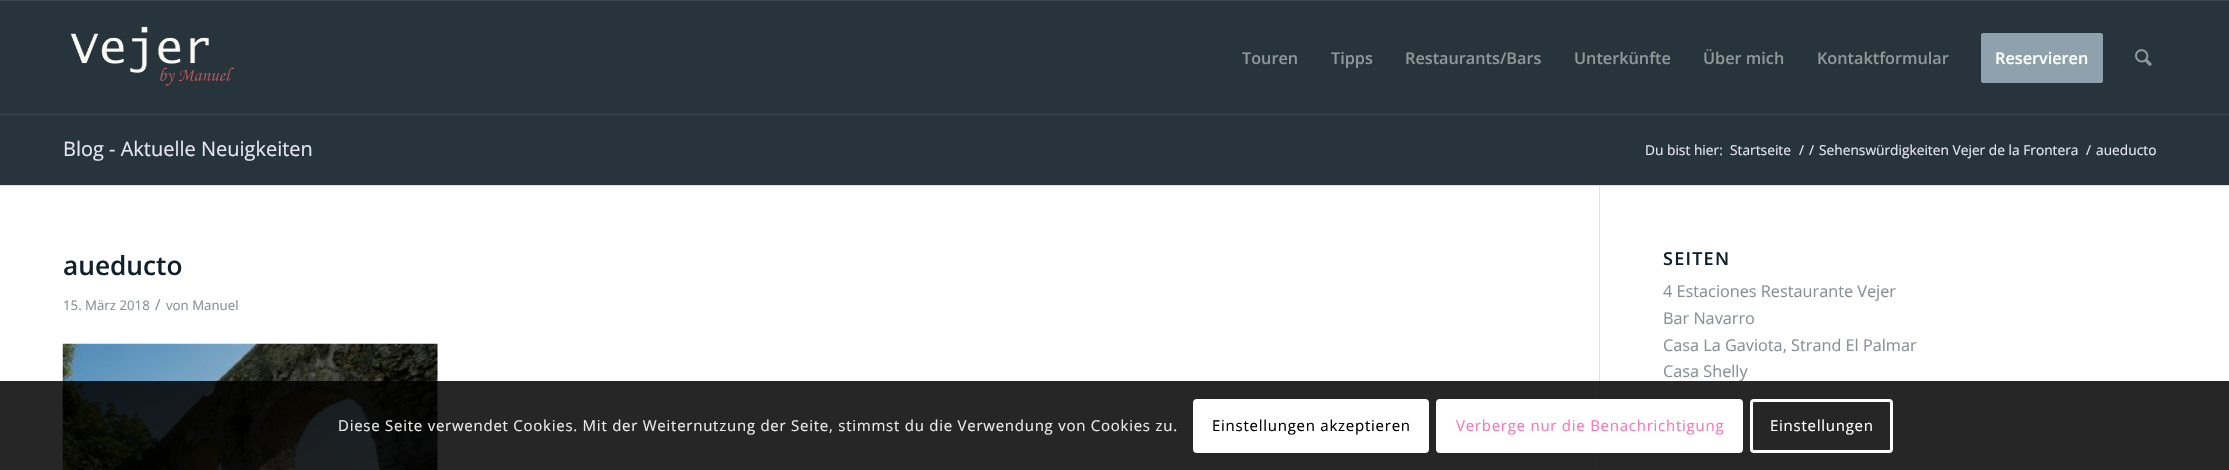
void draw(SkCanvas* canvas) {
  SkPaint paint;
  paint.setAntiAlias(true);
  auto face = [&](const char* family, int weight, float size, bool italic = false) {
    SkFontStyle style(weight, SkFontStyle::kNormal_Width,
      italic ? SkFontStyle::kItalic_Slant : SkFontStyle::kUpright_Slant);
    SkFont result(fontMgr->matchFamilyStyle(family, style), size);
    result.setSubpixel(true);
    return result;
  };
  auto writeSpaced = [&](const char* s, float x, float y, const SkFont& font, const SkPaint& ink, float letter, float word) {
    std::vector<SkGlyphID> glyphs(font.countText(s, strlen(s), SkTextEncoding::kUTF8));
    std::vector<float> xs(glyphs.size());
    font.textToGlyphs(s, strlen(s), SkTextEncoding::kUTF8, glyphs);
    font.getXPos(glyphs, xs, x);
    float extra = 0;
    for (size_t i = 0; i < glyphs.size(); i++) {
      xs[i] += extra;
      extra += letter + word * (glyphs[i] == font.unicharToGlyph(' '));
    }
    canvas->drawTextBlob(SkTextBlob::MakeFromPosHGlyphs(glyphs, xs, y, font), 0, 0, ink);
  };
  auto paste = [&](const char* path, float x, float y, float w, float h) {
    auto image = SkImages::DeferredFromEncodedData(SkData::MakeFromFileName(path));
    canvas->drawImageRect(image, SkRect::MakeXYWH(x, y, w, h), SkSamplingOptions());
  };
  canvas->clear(0xff28343c);
  paint.setColor(0xff384852);
  canvas->drawRect(SkRect::MakeXYWH(0, 0, 2229, 1), paint);
  canvas->drawRect(SkRect::MakeXYWH(0, 114, 2229, 1), paint);
  paste("img/1.png", 70, 26, 165, 60);
  paint.setColor(0xff8ea1ad);
  canvas->drawRoundRect(SkRect::MakeXYWH(1982.5f, 34.5f, 119, 47), 1, 1, paint);
  paint.setStroke(true);
  paint.setStrokeWidth(3);
  canvas->drawRoundRect(SkRect::MakeXYWH(1982.5f, 34.5f, 119, 47), 1, 1, paint);
  paste("img/2.png", 2135, 49, 17, 17);
  paint.setStroke(false);
  {
    const struct { float x, y, w, h; SkColor color; } items[] = {
      {0, 186, 2229, 284, 0xffffffff},
      {0, 185, 2229, 1, 0xffe1e1e1},
      {1599, 186, 1, 284, 0xffe1e1e1},
    };
    for (auto [x, y, w, h, color] : items) {
      paint.setColor(color);
      canvas->drawRect(SkRect::MakeXYWH(x, y, w, h), paint);
    }
  }
  paste("img/3.png", 62, 343, 376, 127);
  paint.setColor(0xd9000000);
  canvas->drawRect(SkRect::MakeXYWH(0, 381, 2229, 89), paint);
  paint.setColor(0xffffffff);
  canvas->drawRoundRect(SkRect::MakeXYWH(1193, 399, 236, 54), 4, 4, paint);
  canvas->drawRoundRect(SkRect::MakeXYWH(1437.5f, 400.5f, 304, 51), 2.5f, 2.5f, paint);
  paint.setStroke(true);
  canvas->drawRoundRect(SkRect::MakeXYWH(1437.5f, 400.5f, 304, 51), 2.5f, 2.5f, paint);
  canvas->drawRoundRect(SkRect::MakeXYWH(1751.5f, 400.5f, 140, 51), 2.5f, 2.5f, paint);
  auto f0 = face("Open Sans", 600, 16.25f);
  paint.setStroke(false);
  paint.setColor(0xff909798);
  {
    const struct { const char* s; float x, y; } items[] = {
      {"Touren", 1242, 64},
      {"Tipps", 1331, 64},
      {"Restaurants/Bars", 1405, 64},
      {"Unterkünfte", 1574, 64},
      {"Über mich", 1703, 64},
      {"Kontaktformular", 1817, 64},
    };
    for (auto [s, x, y] : items) {
      canvas->drawString(s, x, y, f0, paint);
    }
  }
  paint.setColor(0xffffffff);
  canvas->drawString("Reservieren", 1995, 64, f0, paint);
  auto f1 = face("Open Sans", 400, 20);
  paint.setColor(0xffe4e6f0);
  canvas->drawString("Blog - Aktuelle Neuigkeiten", 63, 156, f1, paint);
  auto f2 = face("Open Sans", 400, 13.75f);
  {
    const struct { const char* s; float x, y; } items[] = {
      {"Du bist hier:", 1645, 155},
      {"Startseite", 1730, 155},
      {"/", 1799, 155},
      {"/", 1809, 155},
      {"Sehenswürdigkeiten Vejer de la Frontera", 1819, 155},
      {"/", 2086, 155},
      {"aueducto", 2096, 155},
    };
    for (auto [s, x, y] : items) {
      canvas->drawString(s, x, y, f2, paint);
    }
  }
  auto f3 = face("Open Sans", 600, 26.25f);
  paint.setColor(0xff11202a);
  canvas->drawString("aueducto", 63, 275, f3, paint);
  auto f4 = face("Open Sans", 400, 13.25f);
  paint.setColor(0xff889095);
  canvas->drawString("15. März 2018", 63, 310, f4, paint);
  auto f5 = face("Open Sans", 400, 15);
  canvas->drawString("/", 155, 310, f5, paint);
  canvas->drawString("von Manuel", 166, 310, f4, paint);
  auto f6 = face("Open Sans", 600, 18);
  paint.setColor(0xff11202a);
  writeSpaced("SEITEN", 1663, 265, f6, paint, 1.25f, 0);
  auto f7 = face("Open Sans", 400, 16.25f);
  paint.setColor(0xff889095);
  {
    const struct { const char* s; float x, y; } items[] = {
      {"4 Estaciones Restaurante Vejer", 1663, 297},
      {"Bar Navarro", 1663, 324},
      {"Casa La Gaviota, Strand El Palmar", 1663, 351},
      {"Casa Shelly", 1663, 377},
    };
    for (auto [s, x, y] : items) {
      canvas->drawString(s, x, y, f7, paint);
    }
  }
  paint.setColor(0xffe9e9e9);
  writeSpaced("Diese Seite verwendet Cookies. Mit der Weiternutzung der Seite, stimmst du die Verwendung von Cookies zu.", 338, 431, f5, paint, 0.75f, 0);
  paint.setColor(0xff000000);
  writeSpaced("Einstellungen akzeptieren", 1212, 431, f5, paint, 0.75f, 0);
  paint.setColor(0xffff75b5);
  writeSpaced("Verberge nur die Benachrichtigung", 1456, 431, f5, paint, 0.75f, 0);
  paint.setColor(0xffffffff);
  writeSpaced("Einstellungen", 1770, 431, f5, paint, 0.75f, 0);
}
